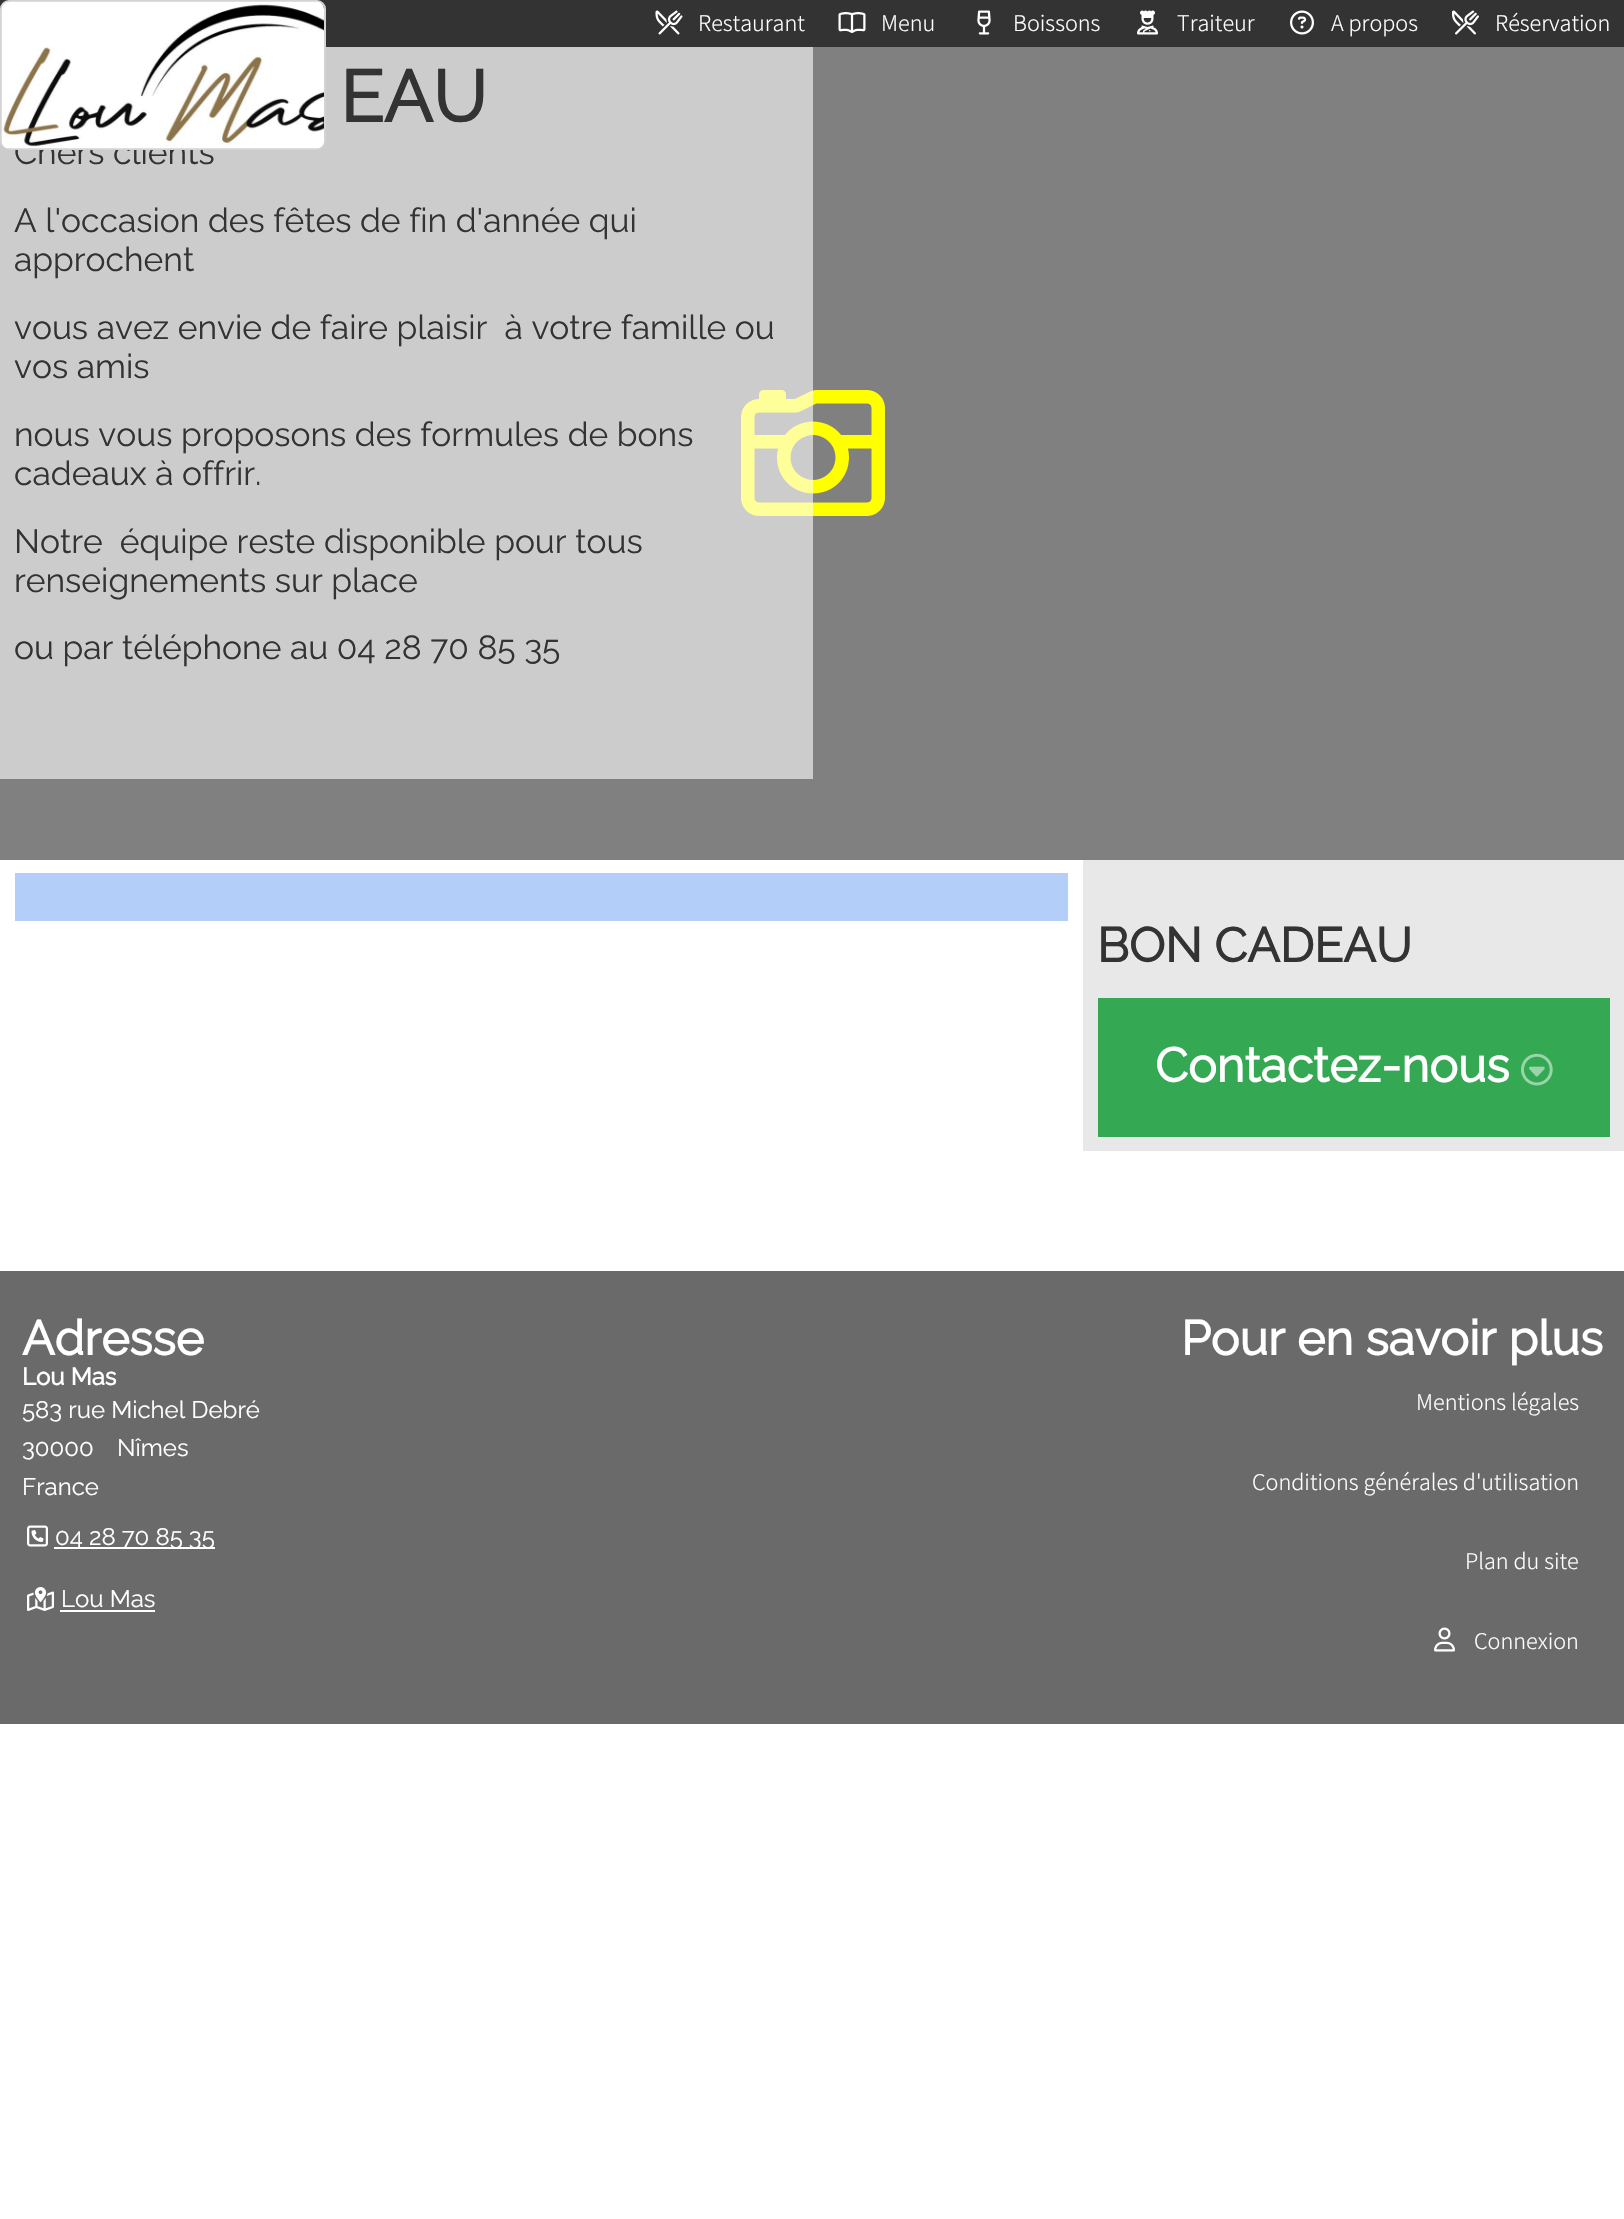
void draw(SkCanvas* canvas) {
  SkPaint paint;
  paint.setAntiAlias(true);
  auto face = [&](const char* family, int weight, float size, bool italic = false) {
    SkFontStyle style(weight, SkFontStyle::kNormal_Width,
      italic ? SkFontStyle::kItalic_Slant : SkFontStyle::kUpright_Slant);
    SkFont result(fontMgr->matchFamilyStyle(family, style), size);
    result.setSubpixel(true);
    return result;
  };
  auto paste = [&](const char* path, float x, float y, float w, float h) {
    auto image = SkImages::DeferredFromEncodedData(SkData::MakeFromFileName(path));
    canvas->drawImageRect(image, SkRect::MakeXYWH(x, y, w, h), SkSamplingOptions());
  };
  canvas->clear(0xffffffff);
  paint.setColor(0xff333333);
  canvas->drawRect(SkRect::MakeXYWH(0, 0, 1624, 47), paint);
  paste("img/2.png", 655, 10, 28, 25);
  paste("img/3.png", 838, 12, 28, 21);
  paste("img/4.png", 977, 10, 14, 25);
  paste("img/5.png", 1137, 10, 21, 25);
  paste("img/6.png", 1290, 10, 24, 25);
  paste("img/7.png", 1452, 10, 27, 25);
  paint.setColor(0xff808080);
  canvas->drawRect(SkRect::MakeXYWH(0, 47, 1624, 813), paint);
  paste("img/8.png", 741, 390, 144, 126);
  {
    const struct { float x, y, w, h; SkColor color; } items[] = {
      {0, 47, 813, 732, 0x99ffffff},
      {15, 873, 1053, 48, 0xffb3cef8},
      {1083, 860, 541, 291, 0xffe8e8e8},
      {1098, 998, 512, 139, 0xff34a853},
    };
    for (auto [x, y, w, h, color] : items) {
      paint.setColor(color);
      canvas->drawRect(SkRect::MakeXYWH(x, y, w, h), paint);
    }
  }
  paste("img/9.png", 1521, 1053, 32, 33);
  paint.setColor(0xff6a6a6a);
  canvas->drawRect(SkRect::MakeXYWH(0, 1271, 1624, 453), paint);
  paste("img/10.png", 27, 1525, 21, 22);
  paint.setColor(0xffffffff);
  canvas->drawRect(SkRect::MakeXYWH(54, 1547, 161, 2), paint);
  paste("img/11.png", 27, 1587, 27, 24);
  canvas->drawRect(SkRect::MakeXYWH(60, 1610, 95, 2), paint);
  paste("img/12.png", 1434, 1627, 21, 25);
  auto f0 = face("Assistant", 200, 24);
  {
    const struct { const char* s; float x, y; } items[] = {
      {"Restaurant", 698, 31},
      {"Menu", 881, 31},
      {"Boissons", 1013, 31},
      {"Traiteur", 1177, 31},
      {"A propos", 1331, 31},
      {"Réservation", 1495, 31},
    };
    for (auto [s, x, y] : items) {
      canvas->drawString(s, x, y, f0, paint);
    }
  }
  auto f1 = face("Raleway", 700, 72);
  paint.setColor(0xff333333);
  canvas->drawString("EAU", 340, 122, f1, paint);
  auto f2 = face("Raleway", 100, 33.6f);
  canvas->drawString("Chers clients", 14, 164, f2, paint);
  paint.setStroke(true);
  paint.setStrokeWidth(2);
  paint.setColor(0xffd3d3d3);
  canvas->drawRoundRect(SkRect::MakeXYWH(1, 1, 324, 148), 8, 8, paint);
  paste("img/1.png", 1, 1, 323, 148);
  paint.setStroke(false);
  paint.setColor(0xff333333);
  {
    const struct { const char* s; float x, y; } items[] = {
      {"A l'occasion des fêtes de fin d'année qui", 14, 232},
      {"approchent", 14, 271},
      {"vous avez envie de faire plaisir  à votre famille ou", 14, 339},
      {"vos amis", 14, 378},
      {"nous vous proposons des formules de bons", 14, 446},
      {"cadeaux à offrir.", 14, 485},
      {"Notre  équipe reste disponible pour tous", 14, 553},
      {"renseignements sur place", 14, 592},
      {"ou par téléphone au 04 28 70 85 35", 14, 659},
    };
    for (auto [s, x, y] : items) {
      canvas->drawString(s, x, y, f2, paint);
    }
  }
  auto f3 = face("Raleway", 700, 48);
  canvas->drawString("BON CADEAU", 1097, 962, f3, paint);
  paint.setColor(0xffffffff);
  canvas->drawString("Contactez-nous", 1155, 1082, f3, paint);
  canvas->drawString("Adresse", 22, 1355, f3, paint);
  auto f4 = face("Raleway", 700, 24);
  canvas->drawString("Lou Mas", 22, 1385, f4, paint);
  auto f5 = face("Raleway", 100, 24);
  {
    const struct { const char* s; float x, y; } items[] = {
      {"583 rue Michel Debré", 22, 1418},
      {"30000", 22, 1456},
      {"Nîmes", 117, 1456},
      {"France", 22, 1495},
      {"04 28 70 85 35", 55, 1545},
      {"Lou Mas", 61, 1607},
    };
    for (auto [s, x, y] : items) {
      canvas->drawString(s, x, y, f5, paint);
    }
  }
  canvas->drawString("Pour en savoir plus", 1181, 1355, f3, paint);
  {
    const struct { const char* s; float x, y; } items[] = {
      {"Mentions légales", 1416, 1410},
      {"Conditions générales d'utilisation", 1252, 1490},
      {"Plan du site", 1465, 1569},
      {"Connexion", 1474, 1649},
    };
    for (auto [s, x, y] : items) {
      canvas->drawString(s, x, y, f0, paint);
    }
  }
}
